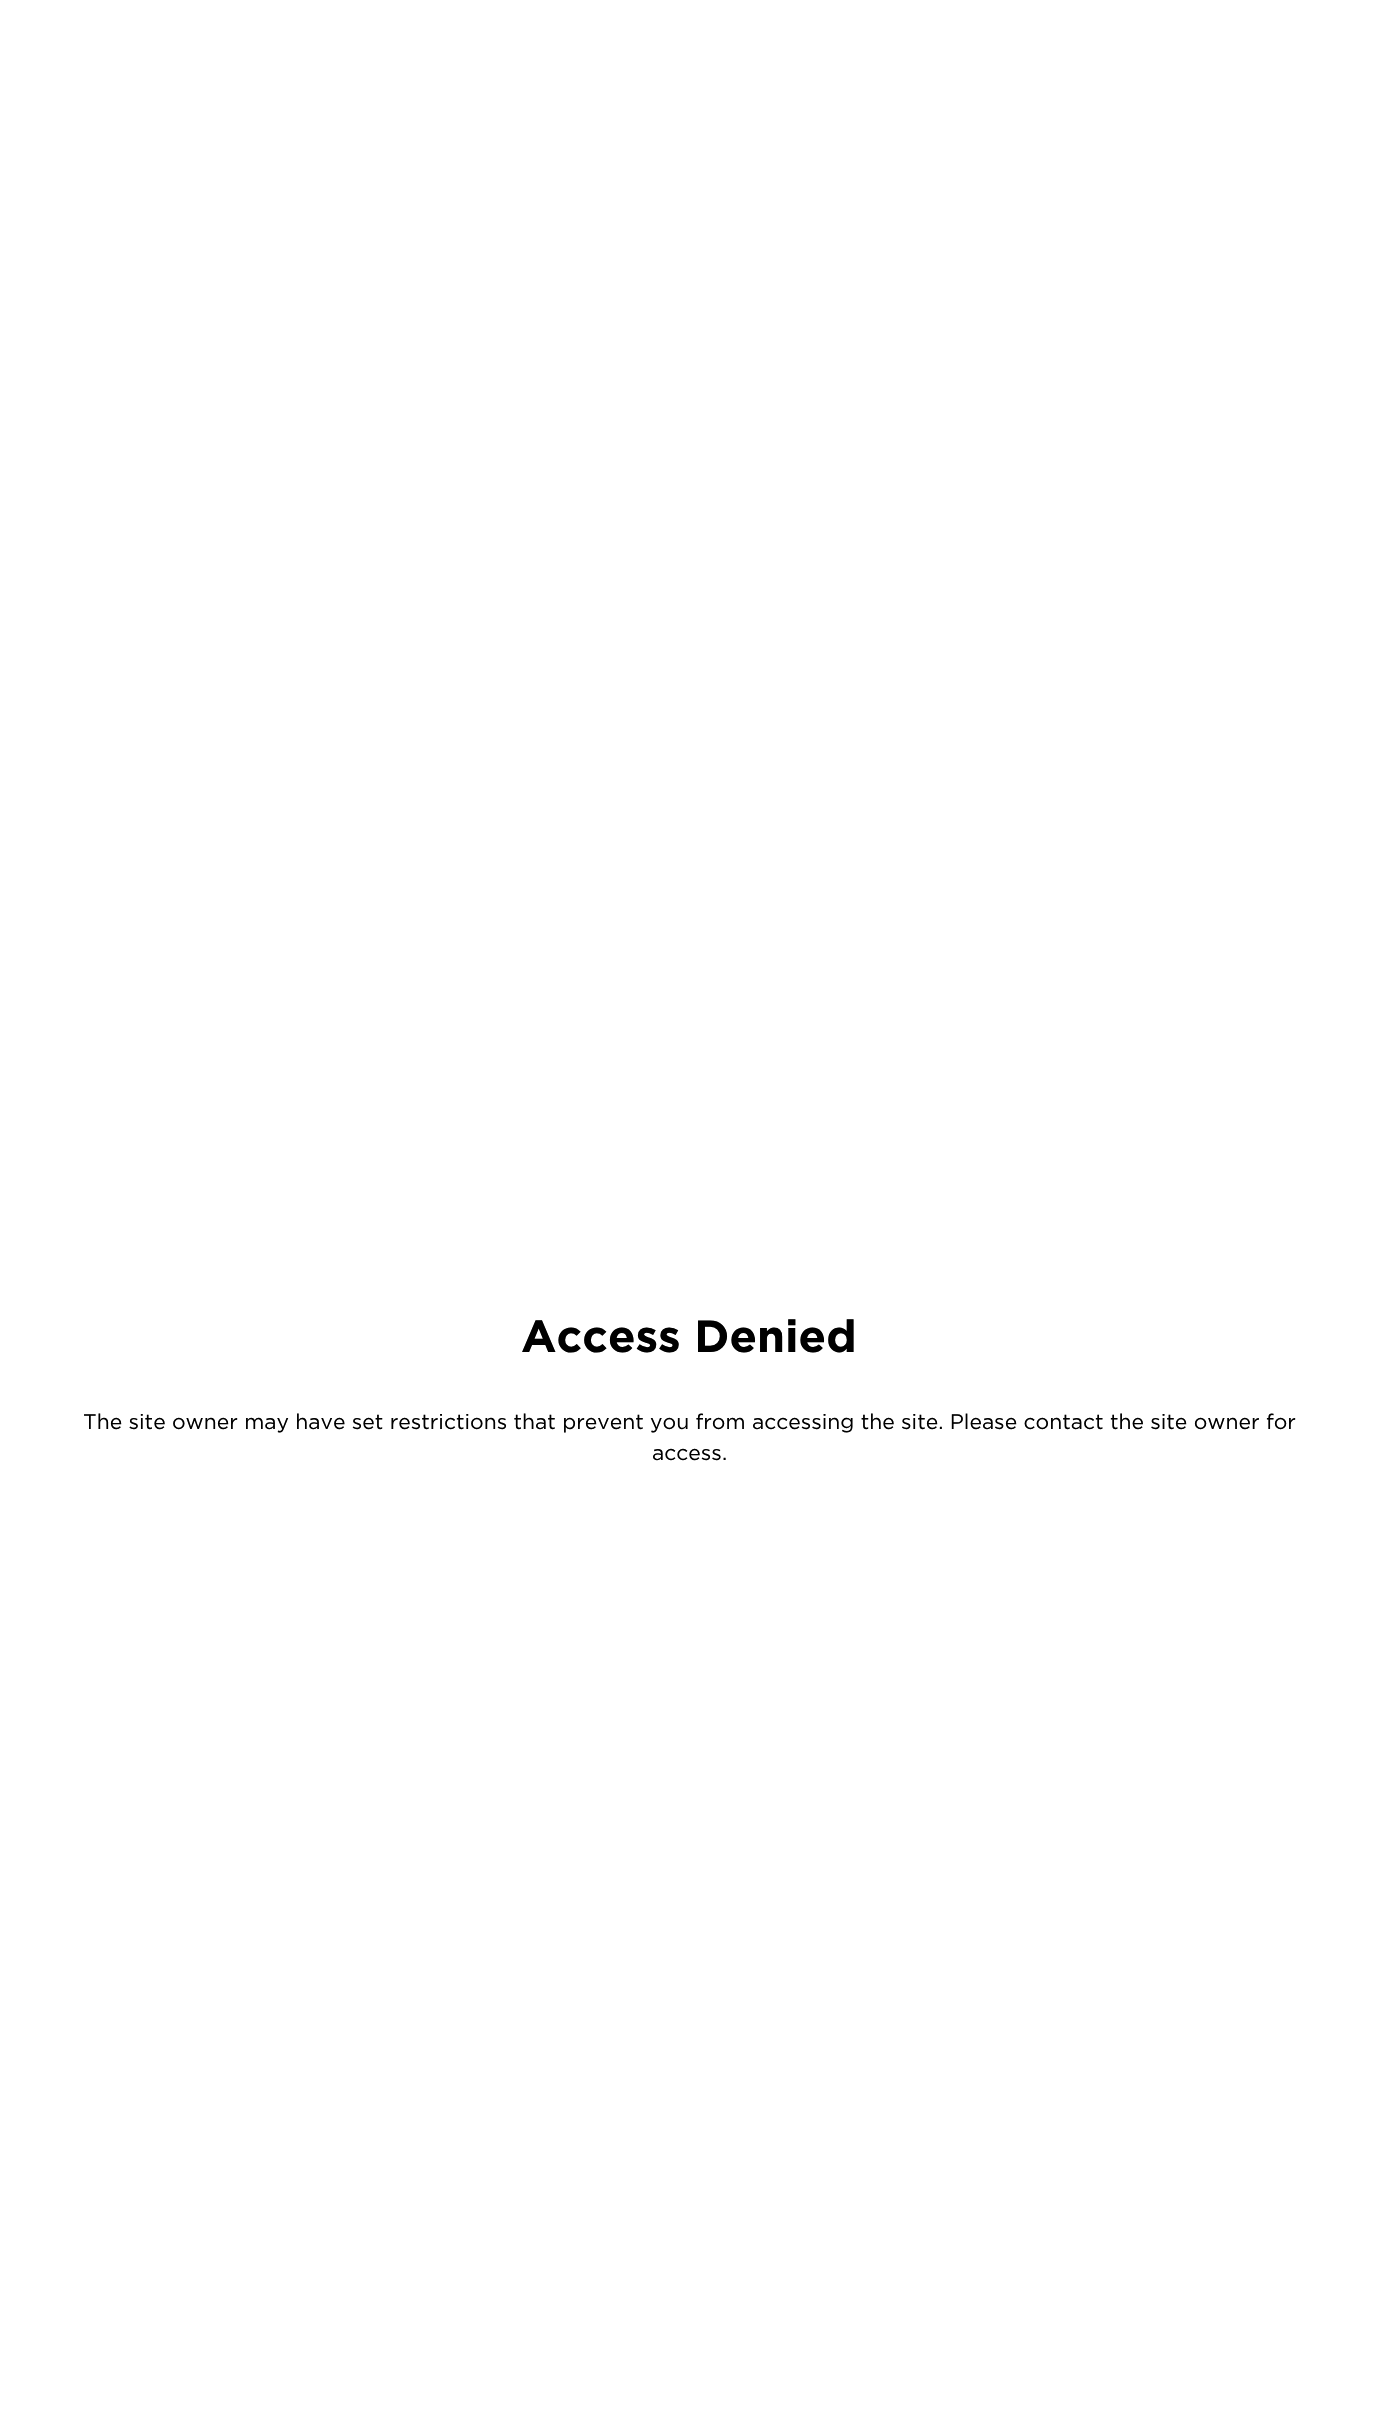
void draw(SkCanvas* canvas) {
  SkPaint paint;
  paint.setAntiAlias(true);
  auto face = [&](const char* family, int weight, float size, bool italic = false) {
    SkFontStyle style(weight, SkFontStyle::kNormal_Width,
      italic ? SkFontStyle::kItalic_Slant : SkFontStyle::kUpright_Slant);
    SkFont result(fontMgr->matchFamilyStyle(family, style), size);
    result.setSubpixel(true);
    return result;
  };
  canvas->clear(0xffffffff);
  auto f0 = face("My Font", 700, 45);
  paint.setColor(0xff000000);
  canvas->drawString("Access Denied", 521, 1352, f0, paint);
  auto f1 = face("Gotham", 400, 21.12f);
  canvas->drawString("The site owner may have set restrictions that prevent you from accessing the site. Please contact the site owner for", 83, 1429, f1, paint);
  canvas->drawString("access.", 652, 1460, f1, paint);
}
